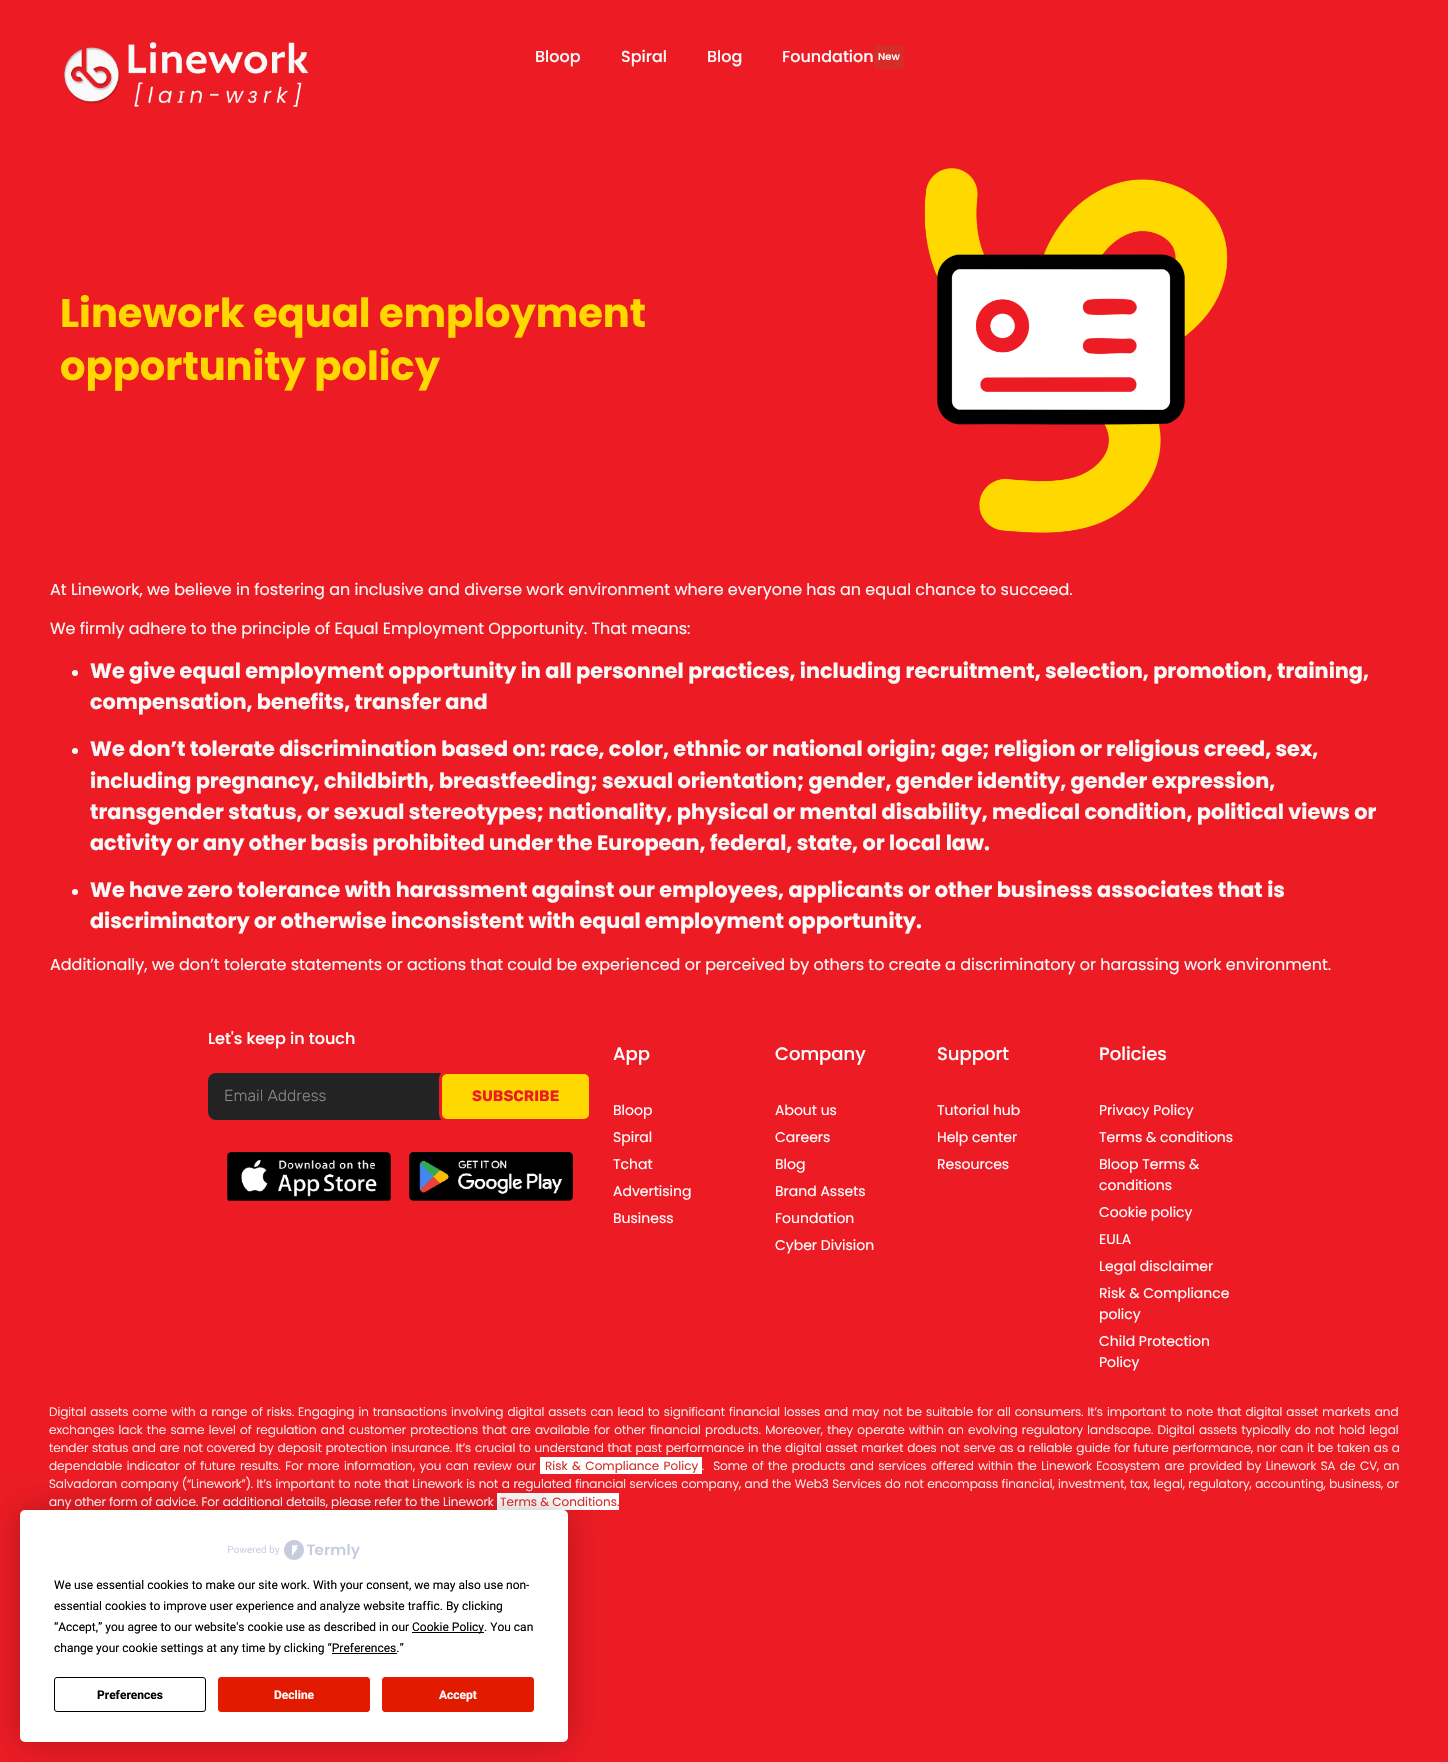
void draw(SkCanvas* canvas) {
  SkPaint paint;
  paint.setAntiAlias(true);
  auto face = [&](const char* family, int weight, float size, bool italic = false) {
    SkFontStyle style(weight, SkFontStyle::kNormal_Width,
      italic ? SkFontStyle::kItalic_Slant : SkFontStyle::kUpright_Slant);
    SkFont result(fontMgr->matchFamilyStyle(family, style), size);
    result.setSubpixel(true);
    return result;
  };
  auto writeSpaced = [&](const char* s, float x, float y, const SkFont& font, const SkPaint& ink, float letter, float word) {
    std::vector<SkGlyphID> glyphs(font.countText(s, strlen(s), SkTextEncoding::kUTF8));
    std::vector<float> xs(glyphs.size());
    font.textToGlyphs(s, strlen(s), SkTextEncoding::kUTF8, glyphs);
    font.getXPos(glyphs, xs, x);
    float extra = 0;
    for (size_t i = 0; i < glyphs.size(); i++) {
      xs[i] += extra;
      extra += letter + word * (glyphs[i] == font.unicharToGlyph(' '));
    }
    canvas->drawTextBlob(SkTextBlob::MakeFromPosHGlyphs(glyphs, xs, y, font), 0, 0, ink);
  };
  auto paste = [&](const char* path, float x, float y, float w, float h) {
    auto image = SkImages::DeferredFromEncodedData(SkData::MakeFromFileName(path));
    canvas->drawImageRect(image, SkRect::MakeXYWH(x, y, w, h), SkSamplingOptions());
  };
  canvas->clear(0xffed1c24);
  paste("img/1.png", 64, 42, 245, 65);
  paint.setColor(0xffd72d28);
  canvas->drawRoundRect(SkRect::MakeXYWH(874, 45, 30, 24), 4, 4, paint);
  paste("img/2.png", 924, 168, 304, 365);
  paint.setColor(0xfff9f9f9);
  canvas->drawCircle(75, 673, 3, paint);
  canvas->drawCircle(75, 751, 3, paint);
  canvas->drawCircle(75, 892, 3, paint);
  paint.setColor(0xff232323);
  canvas->drawRoundRect(SkRect::MakeXYWH(208, 1073, 256, 47), 8, 8, paint);
  paint.setColor(0xffffd800);
  canvas->drawRoundRect(SkRect::MakeXYWH(440.5f, 1072.5f, 150, 48), 6.5f, 6.5f, paint);
  paint.setStroke(true);
  paint.setStrokeWidth(3);
  paint.setColor(0xffed1c24);
  canvas->drawRoundRect(SkRect::MakeXYWH(440.5f, 1072.5f, 150, 48), 6.5f, 6.5f, paint);
  paste("img/3.png", 227, 1152, 164, 49);
  paste("img/4.png", 409, 1152, 164, 49);
  paint.setStroke(false);
  paint.setColor(0xffffffff);
  canvas->drawRect(SkRect::MakeXYWH(540, 1457, 162, 17), paint);
  canvas->drawRect(SkRect::MakeXYWH(497, 1493, 122, 17), paint);
  paint.setColor(0x40000000);
  paint.setMaskFilter(SkMaskFilter::MakeBlur(kNormal_SkBlurStyle, 17.5f));
  canvas->drawRoundRect(SkRect::MakeXYWH(20, 1510, 548, 232), 5, 5, paint);
  paint.setMaskFilter(nullptr);
  paint.setColor(0xffffffff);
  canvas->drawRoundRect(SkRect::MakeXYWH(20, 1510, 548, 232), 5, 5, paint);
  paste("img/5.png", 228, 1540, 132, 20);
  paint.setColor(0xff000000);
  canvas->drawRect(SkRect::MakeXYWH(412, 1632, 72, 1), paint);
  canvas->drawRect(SkRect::MakeXYWH(332, 1653, 65, 1), paint);
  paint.setStroke(true);
  paint.setStrokeWidth(1);
  canvas->drawRoundRect(SkRect::MakeXYWH(54.5f, 1677.5f, 151, 34), 2.5f, 2.5f, paint);
  paint.setStroke(false);
  paint.setColor(0xffe11a00);
  canvas->drawRoundRect(SkRect::MakeXYWH(218.5f, 1677.5f, 151, 34), 2.5f, 2.5f, paint);
  paint.setStroke(true);
  canvas->drawRoundRect(SkRect::MakeXYWH(218.5f, 1677.5f, 151, 34), 2.5f, 2.5f, paint);
  paint.setStroke(false);
  canvas->drawRoundRect(SkRect::MakeXYWH(382.5f, 1677.5f, 151, 34), 2.5f, 2.5f, paint);
  paint.setStroke(true);
  canvas->drawRoundRect(SkRect::MakeXYWH(382.5f, 1677.5f, 151, 34), 2.5f, 2.5f, paint);
  auto f0 = face("Poppins", 500, 16);
  paint.setStroke(false);
  paint.setColor(0xfff9f9f9);
  {
    const struct { const char* s; float x, y; } items[] = {
      {"Bloop", 535, 62},
      {"Spiral", 621, 62},
      {"Blog", 707, 62},
      {"Foundation", 782, 62},
    };
    for (auto [s, x, y] : items) {
      canvas->drawString(s, x, y, f0, paint);
    }
  }
  auto f1 = face("Poppins", 500, 10);
  paint.setColor(0xffffffff);
  canvas->drawString("New", 878, 60, f1, paint);
  auto f2 = face("Poppins", 700, 40);
  paint.setColor(0xffffd800);
  canvas->drawString("Linework equal employment", 60, 327, f2, paint);
  canvas->drawString("opportunity policy", 60, 380, f2, paint);
  auto f3 = face("Poppins", 400, 16);
  paint.setColor(0xfff9f9f9);
  canvas->drawString("At Linework, we believe in fostering an inclusive and diverse work environment where everyone has an equal chance to succeed.", 50, 595, f3, paint);
  canvas->drawString("We firmly adhere to the principle of Equal Employment Opportunity. That means:", 50, 634, f3, paint);
  auto f4 = face("Poppins", 700, 20.8f);
  {
    const struct { const char* s; float x, y; } items[] = {
      {"We give equal employment opportunity in all personnel practices, including recruitment, selection, promotion, training,", 90, 678},
      {"compensation, benefits, transfer and", 90, 709},
      {"We don’t tolerate discrimination based on: race, color, ethnic or national origin; age; religion or religious creed, sex,", 90, 756},
      {"including pregnancy, childbirth, breastfeeding; sexual orientation; gender, gender identity, gender expression,", 90, 788},
      {"transgender status, or sexual stereotypes; nationality, physical or mental disability, medical condition, political views or", 90, 819},
      {"activity or any other basis prohibited under the European, federal, state, or local law.", 90, 850},
      {"We have zero tolerance with harassment against our employees, applicants or other business associates that is", 90, 897},
      {"discriminatory or otherwise inconsistent with equal employment opportunity.", 90, 928},
    };
    for (auto [s, x, y] : items) {
      canvas->drawString(s, x, y, f4, paint);
    }
  }
  canvas->drawString("Additionally, we don’t tolerate statements or actions that could be experienced or perceived by others to create a discriminatory or harassing work environment.", 50, 970, f3, paint);
  paint.setColor(0xffffffff);
  canvas->drawString("Let's keep in touch", 208, 1044, f0, paint);
  auto f5 = face("Rubik", 300, 16);
  paint.setColor(0xff878787);
  canvas->drawString("Email Address", 224, 1101, f5, paint);
  auto f6 = face("Rubik", 700, 15);
  paint.setColor(0xffed1c24);
  canvas->drawString("SUBSCRIBE", 472, 1101, f6, paint);
  auto f7 = face("Poppins", 500, 18);
  paint.setColor(0xffffffff);
  canvas->drawString("App", 613, 1060, f7, paint);
  auto f8 = face("Poppins", 400, 14);
  {
    const struct { const char* s; float x, y; } items[] = {
      {"Bloop", 613, 1115},
      {"Spiral", 613, 1142},
      {"Tchat", 613, 1169},
      {"Advertising", 613, 1196},
      {"Business", 613, 1223},
    };
    for (auto [s, x, y] : items) {
      canvas->drawString(s, x, y, f8, paint);
    }
  }
  canvas->drawString("Company", 775, 1060, f7, paint);
  {
    const struct { const char* s; float x, y; } items[] = {
      {"About us", 775, 1115},
      {"Careers", 775, 1142},
      {"Blog", 775, 1169},
      {"Brand Assets", 775, 1196},
      {"Foundation", 775, 1223},
      {"Cyber Division", 775, 1250},
    };
    for (auto [s, x, y] : items) {
      canvas->drawString(s, x, y, f8, paint);
    }
  }
  canvas->drawString("Support", 937, 1060, f7, paint);
  {
    const struct { const char* s; float x, y; } items[] = {
      {"Tutorial hub", 937, 1115},
      {"Help center", 937, 1142},
      {"Resources", 937, 1169},
    };
    for (auto [s, x, y] : items) {
      canvas->drawString(s, x, y, f8, paint);
    }
  }
  canvas->drawString("Policies", 1099, 1060, f7, paint);
  {
    const struct { const char* s; float x, y; } items[] = {
      {"Privacy Policy", 1099, 1115},
      {"Terms & conditions", 1099, 1142},
      {"Bloop Terms &", 1099, 1169},
      {"conditions", 1099, 1190},
      {"Cookie policy", 1099, 1217},
      {"EULA", 1099, 1244},
      {"Legal disclaimer", 1099, 1271},
      {"Risk & Compliance", 1099, 1298},
      {"policy", 1099, 1319},
      {"Child Protection", 1099, 1346},
      {"Policy", 1099, 1367},
    };
    for (auto [s, x, y] : items) {
      canvas->drawString(s, x, y, f8, paint);
    }
  }
  auto f9 = face("Poppins", 300, 12);
  paint.setColor(0xfff9f9f9);
  writeSpaced("Digital assets come with a range of risks. Engaging in transactions involving digital assets can lead to significant financial losses and may not be suitable for all consumers. It’s important to note that digital asset markets and", 49, 1416, f9, paint, 0, 0.7f);
  writeSpaced("exchanges lack the same level of regulation and customer protections that are available for other financial products. Moreover, they operate within an evolving regulatory landscape. Digital assets typically do not hold legal", 49, 1434, f9, paint, 0, 1);
  writeSpaced("tender status and are not covered by deposit protection insurance. It’s crucial to understand that past performance in the digital asset market does not serve as a reliable guide for future performance, nor can it be taken as a", 49, 1452, f9, paint, 0, 0.4f);
  writeSpaced("dependable indicator of future results. For more information, you can review our", 49, 1470, f9, paint, 0, 1.2f);
  auto f10 = face("Poppins", 400, 12);
  paint.setColor(0xffd72d29);
  writeSpaced("Risk & Compliance Policy", 545, 1470, f10, paint, 0, 1.2f);
  paint.setColor(0xfff9f9f9);
  writeSpaced(".  Some of the products and services offered within the Linework Ecosystem are provided by Linework SA de CV, an", 702, 1470, f9, paint, 0, 1.2f);
  writeSpaced("Salvadoran company (“Linework”). It’s important to note that Linework is not a regulated financial services company, and the Web3 Services do not encompass financial, investment, tax, legal, regulatory, accounting, business, or", 49, 1488, f9, paint, 0, 0.25f);
  canvas->drawString("any other form of advice. For additional details, please refer to the Linework", 49, 1506, f9, paint);
  paint.setColor(0xffd72d29);
  canvas->drawString("Terms & Conditions.", 500, 1506, f10, paint);
  auto f11 = face("Roboto", 400, 12);
  paint.setColor(0xff000000);
  {
    const struct { const char* s; float x, y; } items[] = {
      {"We use essential cookies to make our site work. With your consent, we may also use non-", 54, 1589},
      {"essential cookies to improve user experience and analyze website traffic. By clicking", 54, 1610},
      {"“Accept,” you agree to our website's cookie use as described in our", 54, 1631},
      {"Cookie Policy. You can", 412, 1631},
      {"change your cookie settings at any time by clicking “Preferences.”", 54, 1652},
    };
    for (auto [s, x, y] : items) {
      canvas->drawString(s, x, y, f11, paint);
    }
  }
  auto f12 = face("Roboto", 700, 12);
  canvas->drawString("Preferences", 97, 1699, f12, paint);
  paint.setColor(0xffffffff);
  canvas->drawString("Decline", 274, 1699, f12, paint);
  canvas->drawString("Accept", 439, 1699, f12, paint);
}
